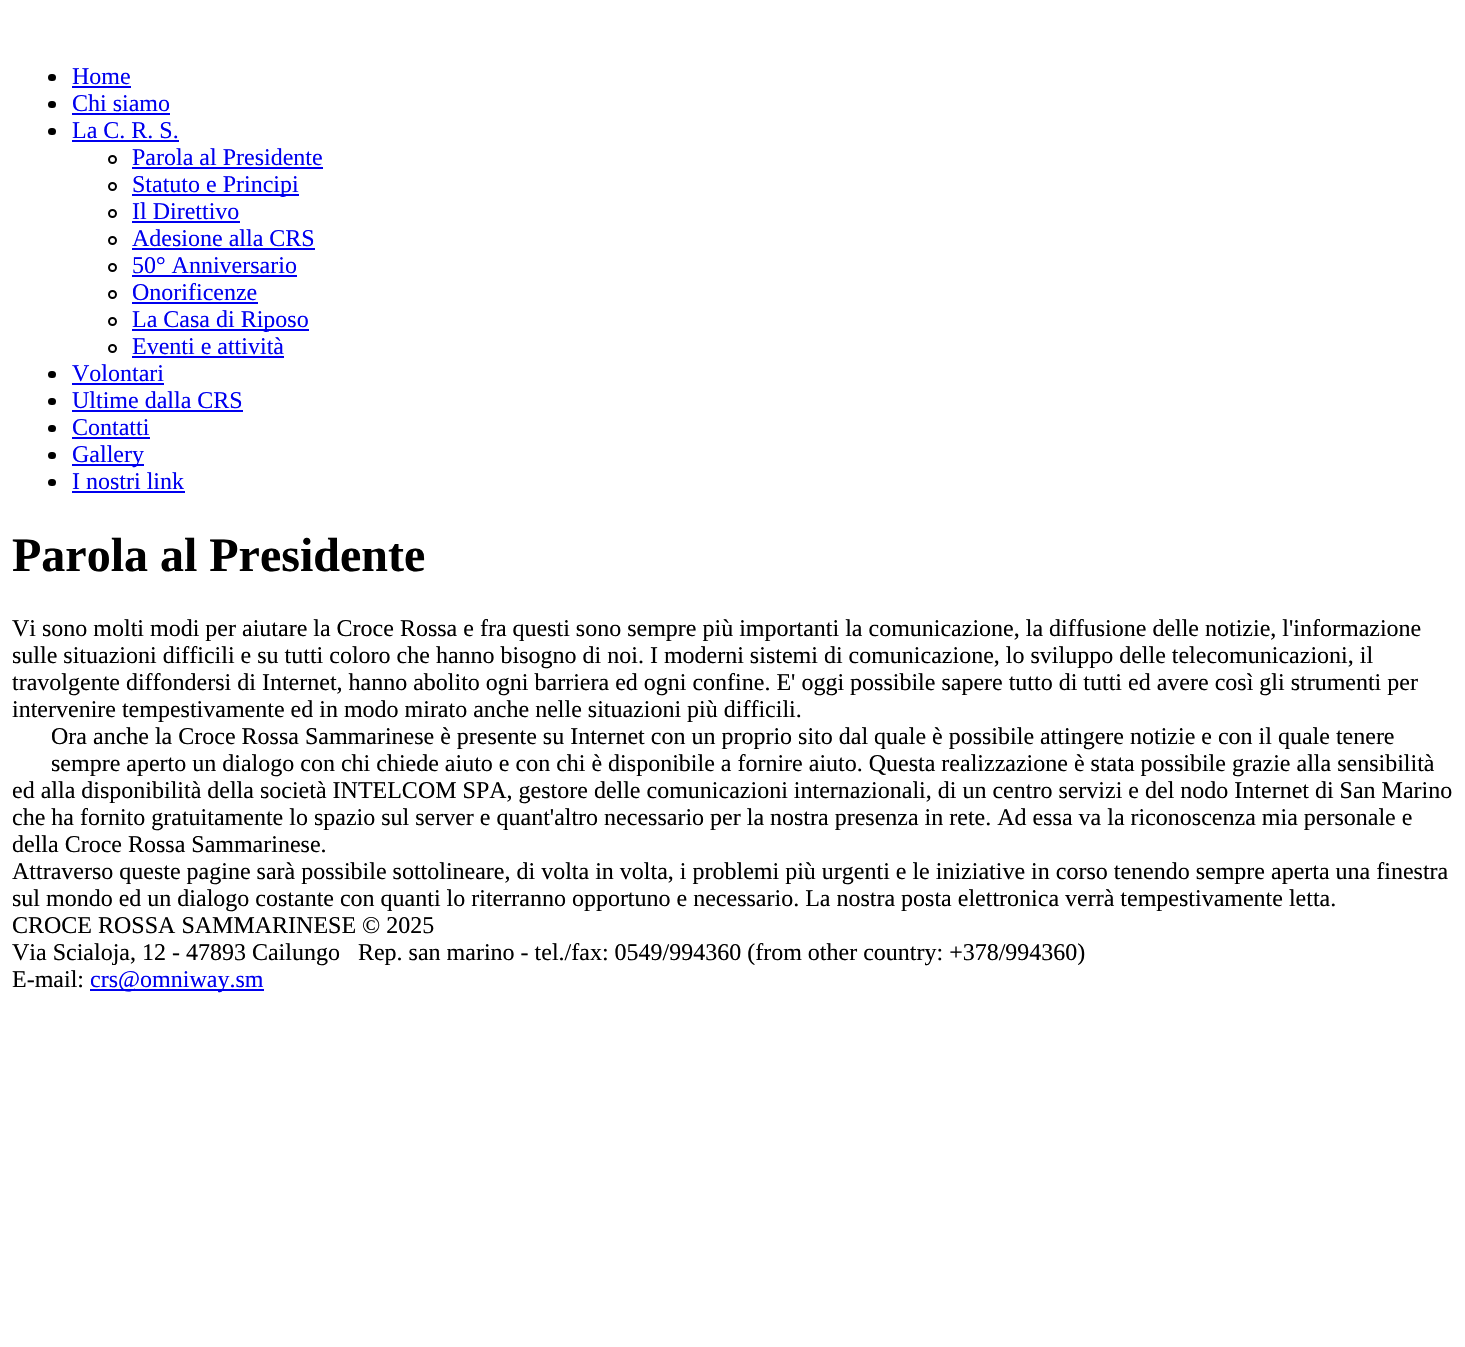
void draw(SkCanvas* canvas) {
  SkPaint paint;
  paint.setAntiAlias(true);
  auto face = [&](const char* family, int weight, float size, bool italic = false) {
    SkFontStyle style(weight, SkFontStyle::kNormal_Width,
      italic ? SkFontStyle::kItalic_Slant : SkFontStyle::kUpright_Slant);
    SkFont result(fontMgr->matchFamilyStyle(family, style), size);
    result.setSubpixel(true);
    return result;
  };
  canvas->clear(0xffffffff);
  paint.setColor(0xff000000);
  canvas->drawRoundRect(SkRect::MakeXYWH(48, 74, 8, 7), 3.5f, 3.5f, paint);
  paint.setColor(0xff0000ee);
  canvas->drawRect(SkRect::MakeXYWH(72, 86, 59, 2), paint);
  paint.setColor(0xff000000);
  canvas->drawRoundRect(SkRect::MakeXYWH(48, 101, 8, 7), 3.5f, 3.5f, paint);
  paint.setColor(0xff0000ee);
  canvas->drawRect(SkRect::MakeXYWH(72, 113, 98, 2), paint);
  paint.setColor(0xff000000);
  canvas->drawRoundRect(SkRect::MakeXYWH(48, 128, 8, 7), 3.5f, 3.5f, paint);
  paint.setColor(0xff0000ee);
  canvas->drawRect(SkRect::MakeXYWH(72, 140, 107, 2), paint);
  paint.setStroke(true);
  paint.setStrokeWidth(2);
  paint.setColor(0xff000000);
  canvas->drawCircle(112.5f, 159.5f, 3.5f, paint);
  paint.setStroke(false);
  paint.setColor(0xff0000ee);
  canvas->drawRect(SkRect::MakeXYWH(132, 167, 191, 2), paint);
  paint.setStroke(true);
  paint.setColor(0xff000000);
  canvas->drawCircle(112.5f, 186.5f, 3.5f, paint);
  paint.setStroke(false);
  paint.setColor(0xff0000ee);
  canvas->drawRect(SkRect::MakeXYWH(132, 194, 167, 2), paint);
  paint.setStroke(true);
  paint.setColor(0xff000000);
  canvas->drawCircle(112.5f, 213.5f, 3.5f, paint);
  paint.setStroke(false);
  paint.setColor(0xff0000ee);
  canvas->drawRect(SkRect::MakeXYWH(132, 221, 108, 2), paint);
  paint.setStroke(true);
  paint.setColor(0xff000000);
  canvas->drawCircle(112.5f, 240.5f, 3.5f, paint);
  paint.setStroke(false);
  paint.setColor(0xff0000ee);
  canvas->drawRect(SkRect::MakeXYWH(132, 248, 183, 2), paint);
  paint.setStroke(true);
  paint.setColor(0xff000000);
  canvas->drawCircle(112.5f, 267.5f, 3.5f, paint);
  paint.setStroke(false);
  paint.setColor(0xff0000ee);
  canvas->drawRect(SkRect::MakeXYWH(132, 275, 165, 2), paint);
  paint.setStroke(true);
  paint.setColor(0xff000000);
  canvas->drawCircle(112.5f, 294.5f, 3.5f, paint);
  paint.setStroke(false);
  paint.setColor(0xff0000ee);
  canvas->drawRect(SkRect::MakeXYWH(132, 302, 126, 2), paint);
  paint.setStroke(true);
  paint.setColor(0xff000000);
  canvas->drawCircle(112.5f, 321.5f, 3.5f, paint);
  paint.setStroke(false);
  paint.setColor(0xff0000ee);
  canvas->drawRect(SkRect::MakeXYWH(132, 329, 177, 2), paint);
  paint.setStroke(true);
  paint.setColor(0xff000000);
  canvas->drawCircle(112.5f, 348.5f, 3.5f, paint);
  paint.setStroke(false);
  paint.setColor(0xff0000ee);
  canvas->drawRect(SkRect::MakeXYWH(132, 356, 152, 2), paint);
  paint.setColor(0xff000000);
  canvas->drawRoundRect(SkRect::MakeXYWH(48, 371, 8, 7), 3.5f, 3.5f, paint);
  paint.setColor(0xff0000ee);
  canvas->drawRect(SkRect::MakeXYWH(72, 383, 92, 2), paint);
  paint.setColor(0xff000000);
  canvas->drawRoundRect(SkRect::MakeXYWH(48, 398, 8, 7), 3.5f, 3.5f, paint);
  paint.setColor(0xff0000ee);
  canvas->drawRect(SkRect::MakeXYWH(72, 410, 171, 2), paint);
  paint.setColor(0xff000000);
  canvas->drawRoundRect(SkRect::MakeXYWH(48, 425, 8, 7), 3.5f, 3.5f, paint);
  paint.setColor(0xff0000ee);
  canvas->drawRect(SkRect::MakeXYWH(72, 437, 78, 2), paint);
  paint.setColor(0xff000000);
  canvas->drawRoundRect(SkRect::MakeXYWH(48, 452, 8, 7), 3.5f, 3.5f, paint);
  paint.setColor(0xff0000ee);
  canvas->drawRect(SkRect::MakeXYWH(72, 464, 72, 2), paint);
  paint.setColor(0xff000000);
  canvas->drawRoundRect(SkRect::MakeXYWH(48, 479, 8, 7), 3.5f, 3.5f, paint);
  paint.setColor(0xff0000ee);
  canvas->drawRect(SkRect::MakeXYWH(72, 491, 113, 2), paint);
  canvas->drawRect(SkRect::MakeXYWH(90, 989, 174, 2), paint);
  auto f0 = face("Liberation Serif", 400, 24);
  {
    const struct { const char* s; float x, y; } items[] = {
      {"Home", 72, 84},
      {"Chi siamo", 72, 111},
      {"La C. R. S.", 72, 138},
      {"Parola al Presidente", 132, 165},
      {"Statuto e Principi", 132, 192},
      {"Il Direttivo", 132, 219},
      {"Adesione alla CRS", 132, 246},
      {"50° Anniversario", 132, 273},
      {"Onorificenze", 132, 300},
      {"La Casa di Riposo", 132, 327},
      {"Eventi e attività", 132, 354},
      {"Volontari", 72, 381},
      {"Ultime dalla CRS", 72, 408},
      {"Contatti", 72, 435},
      {"Gallery", 72, 462},
      {"I nostri link", 72, 489},
    };
    for (auto [s, x, y] : items) {
      canvas->drawString(s, x, y, f0, paint);
    }
  }
  auto f1 = face("Liberation Serif", 700, 48);
  paint.setColor(0xff000000);
  canvas->drawString("Parola al Presidente", 12, 571, f1, paint);
  {
    const struct { const char* s; float x, y; } items[] = {
      {"Vi sono molti modi per aiutare la Croce Rossa e fra questi sono sempre più importanti la comunicazione, la diffusione delle notizie, l'informazione", 12, 636},
      {"sulle situazioni difficili e su tutti coloro che hanno bisogno di noi. I moderni sistemi di comunicazione, lo sviluppo delle telecomunicazioni, il", 12, 663},
      {"travolgente diffondersi di Internet, hanno abolito ogni barriera ed ogni confine. E' oggi possibile sapere tutto di tutti ed avere così gli strumenti per", 12, 690},
      {"intervenire tempestivamente ed in modo mirato anche nelle situazioni più difficili.", 12, 717},
      {"Ora anche la Croce Rossa Sammarinese è presente su Internet con un proprio sito dal quale è possibile attingere notizie e con il quale tenere", 51, 744},
      {"sempre aperto un dialogo con chi chiede aiuto e con chi è disponibile a fornire aiuto. Questa realizzazione è stata possibile grazie alla sensibilità", 51, 771},
      {"ed alla disponibilità della società INTELCOM SPA, gestore delle comunicazioni internazionali, di un centro servizi e del nodo Internet di San Marino", 12, 798},
      {"che ha fornito gratuitamente lo spazio sul server e quant'altro necessario per la nostra presenza in rete. Ad essa va la riconoscenza mia personale e", 12, 825},
      {"della Croce Rossa Sammarinese.", 12, 852},
      {"Attraverso queste pagine sarà possibile sottolineare, di volta in volta, i problemi più urgenti e le iniziative in corso tenendo sempre aperta una finestra", 12, 879},
      {"sul mondo ed un dialogo costante con quanti lo riterranno opportuno e necessario. La nostra posta elettronica verrà tempestivamente letta.", 12, 906},
      {"CROCE ROSSA SAMMARINESE © 2025", 12, 933},
      {"Via Scialoja, 12 - 47893 Cailungo   Rep. san marino - tel./fax: 0549/994360 (from other country: +378/994360)", 12, 960},
      {"E-mail:", 12, 987},
    };
    for (auto [s, x, y] : items) {
      canvas->drawString(s, x, y, f0, paint);
    }
  }
  paint.setColor(0xff0000ee);
  canvas->drawString("crs@omniway.sm", 90, 987, f0, paint);
}
